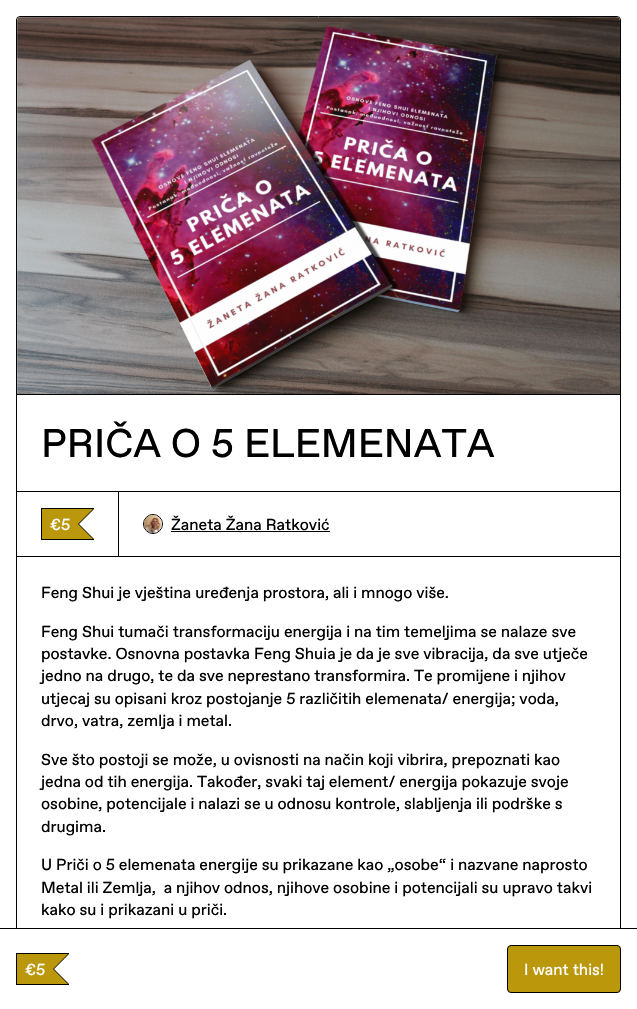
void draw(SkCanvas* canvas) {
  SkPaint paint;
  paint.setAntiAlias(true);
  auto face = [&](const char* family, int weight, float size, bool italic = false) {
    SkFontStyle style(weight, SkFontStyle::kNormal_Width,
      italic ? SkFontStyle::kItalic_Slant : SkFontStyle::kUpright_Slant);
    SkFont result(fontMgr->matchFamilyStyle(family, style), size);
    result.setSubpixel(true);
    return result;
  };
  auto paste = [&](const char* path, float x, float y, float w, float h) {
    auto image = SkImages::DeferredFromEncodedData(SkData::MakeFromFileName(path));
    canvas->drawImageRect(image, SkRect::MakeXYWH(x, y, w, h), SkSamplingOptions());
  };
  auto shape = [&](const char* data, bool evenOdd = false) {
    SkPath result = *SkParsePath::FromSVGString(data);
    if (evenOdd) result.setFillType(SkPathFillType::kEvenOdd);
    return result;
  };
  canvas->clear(0xffffffff);
  paint.setStroke(true);
  paint.setStrokeWidth(1);
  paint.setColor(0xff000000);
  canvas->drawRoundRect(SkRect::MakeXYWH(16.5f, 16.5f, 604, 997), 3.5f, 3.5f, paint);
  paint.setStroke(false);
  canvas->drawRect(SkRect::MakeXYWH(17, 394, 603, 1), paint);
  paste("img/1.png", 17, 17, 603, 377);
  canvas->drawRect(SkRect::MakeXYWH(119, 491, 501, 1), paint);
  paint.setStroke(true);
  canvas->drawRect(SkRect::MakeXYWH(16.5f, 491.5f, 102, 65), paint);
  paint.setStroke(false);
  {
    const struct { float x, y, w, h; SkColor color; } items[] = {
      {41, 508, 53, 1, 0xff000000},
      {41, 539, 53, 1, 0xff000000},
      {41, 508, 1, 32, 0xff000000},
      {42, 509, 36, 30, 0xffba970b},
    };
    for (auto [x, y, w, h, color] : items) {
      paint.setColor(color);
      canvas->drawRect(SkRect::MakeXYWH(x, y, w, h), paint);
    }
  }
  paint.setColor(0xff000000);
  canvas->drawPath(shape("M78 509H94L79 524ZM94 539H78L79 524Z"), paint);
  canvas->drawRect(SkRect::MakeXYWH(78, 523, 1, 2), paint);
  paint.setColor(0xffba970b);
  canvas->drawPath(shape("M77 509H93L78 524ZM93 539H77L78 524Z"), paint);
  paint.setStroke(true);
  paint.setColor(0xff000000);
  canvas->drawCircle(153, 524, 9.5f, paint);
  paste("img/2.png", 144, 515, 18, 18);
  paint.setStroke(false);
  {
    const struct { float x, y, w, h; SkColor color; } items[] = {
      {171, 531, 159, 1, 0xff000000},
      {119, 556, 501, 1, 0xff000000},
      {0, 928, 637, 1, 0xff000000},
      {16, 929, 605, 80, 0xffffffff},
      {16, 953, 53, 1, 0xff000000},
      {16, 984, 53, 1, 0xff000000},
      {16, 953, 1, 32, 0xff000000},
      {17, 954, 36, 30, 0xffba970b},
    };
    for (auto [x, y, w, h, color] : items) {
      paint.setColor(color);
      canvas->drawRect(SkRect::MakeXYWH(x, y, w, h), paint);
    }
  }
  paint.setColor(0xff000000);
  canvas->drawPath(shape("M53 954H69L54 969ZM69 984H53L54 969Z"), paint);
  canvas->drawRect(SkRect::MakeXYWH(53, 968, 1, 2), paint);
  paint.setColor(0xffba970b);
  canvas->drawPath(shape("M52 954H68L53 969ZM68 984H52L53 969Z"), paint);
  canvas->drawRoundRect(SkRect::MakeXYWH(507.5f, 945.5f, 113, 47), 3.5f, 3.5f, paint);
  paint.setStroke(true);
  paint.setColor(0xff000000);
  canvas->drawRoundRect(SkRect::MakeXYWH(507.5f, 945.5f, 113, 47), 3.5f, 3.5f, paint);
  auto f0 = face("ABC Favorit", 400, 40);
  paint.setStroke(false);
  canvas->drawString("PRIČA O 5 ELEMENATA", 41, 457, f0, paint);
  auto f1 = face("ABC Favorit", 400, 16);
  paint.setColor(0xffffffff);
  canvas->drawString("€5", 50, 530, f1, paint);
  paint.setColor(0xff000000);
  {
    const struct { const char* s; float x, y; } items[] = {
      {"Žaneta Žana Ratković", 171, 530},
      {"Feng Shui je vještina uređenja prostora, ali i mnogo više.", 41, 598},
      {"Feng Shui tumači transformaciju energija i na tim temeljima se nalaze sve", 41, 637},
      {"postavke. Osnovna postavka Feng Shuia je da je sve vibracija, da sve utječe", 41, 659},
      {"jedno na drugo, te da sve neprestano transformira. Te promijene i njihov", 41, 681},
      {"utjecaj su opisani kroz postojanje 5 različitih elemenata/ energija; voda,", 41, 704},
      {"drvo, vatra, zemlja i metal.", 41, 726},
      {"Sve što postoji se može, u ovisnosti na način koji vibrira, prepoznati kao", 41, 765},
      {"jedna od tih energija. Također, svaki taj element/ energija pokazuje svoje", 41, 787},
      {"osobine, potencijale i nalazi se u odnosu kontrole, slabljenja ili podrške s", 41, 809},
      {"drugima.", 41, 832},
      {"U Priči o 5 elemenata energije su prikazane kao „osobe“ i nazvane naprosto", 41, 870},
      {"Metal ili Zemlja,  a njihov odnos, njihove osobine i potencijali su upravo takvi", 41, 893},
      {"kako su i prikazani u priči.", 41, 915},
    };
    for (auto [s, x, y] : items) {
      canvas->drawString(s, x, y, f1, paint);
    }
  }
  paint.setColor(0xffffffff);
  canvas->drawString("€5", 25, 975, f1, paint);
  canvas->drawString("I want this!", 524, 975, f1, paint);
}
